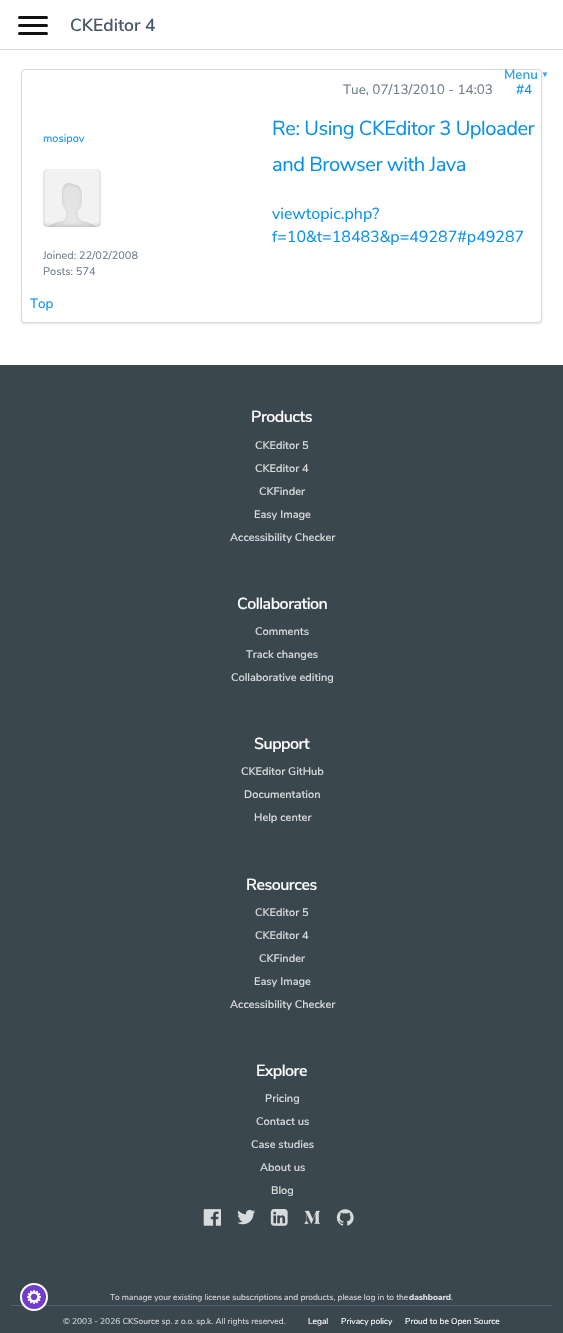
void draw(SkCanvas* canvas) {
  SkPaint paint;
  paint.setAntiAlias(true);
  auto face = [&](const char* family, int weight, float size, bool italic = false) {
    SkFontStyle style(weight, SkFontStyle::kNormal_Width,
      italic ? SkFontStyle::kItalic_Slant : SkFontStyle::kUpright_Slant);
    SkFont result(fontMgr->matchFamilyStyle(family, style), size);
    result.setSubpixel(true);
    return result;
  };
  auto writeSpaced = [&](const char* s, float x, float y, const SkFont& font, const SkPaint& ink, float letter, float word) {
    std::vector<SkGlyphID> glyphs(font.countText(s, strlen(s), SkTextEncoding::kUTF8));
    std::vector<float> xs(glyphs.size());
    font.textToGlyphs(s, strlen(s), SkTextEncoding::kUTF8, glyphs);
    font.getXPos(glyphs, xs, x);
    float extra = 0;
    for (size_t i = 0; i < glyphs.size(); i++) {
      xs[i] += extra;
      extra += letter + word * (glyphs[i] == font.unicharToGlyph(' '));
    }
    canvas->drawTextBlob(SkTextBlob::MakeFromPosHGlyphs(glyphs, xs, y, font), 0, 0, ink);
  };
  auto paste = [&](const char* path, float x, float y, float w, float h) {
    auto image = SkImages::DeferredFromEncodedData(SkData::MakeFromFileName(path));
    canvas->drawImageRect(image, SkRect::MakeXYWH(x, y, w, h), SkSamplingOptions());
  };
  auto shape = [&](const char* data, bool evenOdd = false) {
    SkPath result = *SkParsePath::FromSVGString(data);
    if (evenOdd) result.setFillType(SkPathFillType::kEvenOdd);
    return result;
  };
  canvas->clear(0xffffffff);
  paint.setColor(0xff111111);
  canvas->drawRoundRect(SkRect::MakeXYWH(18, 16, 30, 3), 1.5f, 1.5f, paint);
  canvas->drawRoundRect(SkRect::MakeXYWH(18, 24, 30, 3), 1.5f, 1.5f, paint);
  canvas->drawRoundRect(SkRect::MakeXYWH(18, 32, 30, 3), 1.5f, 1.5f, paint);
  paint.setColor(0xffd9d9d9);
  canvas->drawRect(SkRect::MakeXYWH(0, 49, 563, 1), paint);
  canvas->save();
  canvas->clipPath(shape("M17 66H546V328H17ZM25 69H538C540 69 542 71 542 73V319C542 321 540 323 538 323H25C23 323 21 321 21 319V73C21 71 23 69 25 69Z", true), true);
  paint.setColor(0x1a000000);
  paint.setMaskFilter(SkMaskFilter::MakeBlur(kNormal_SkBlurStyle, 1));
  canvas->drawRoundRect(SkRect::MakeXYWH(21, 70, 521, 254), 4, 4, paint);
  paint.setMaskFilter(nullptr);
  canvas->restore();
  paint.setStroke(true);
  paint.setStrokeWidth(1);
  paint.setColor(0x26000000);
  canvas->drawRoundRect(SkRect::MakeXYWH(21.5f, 69.5f, 520, 253), 3.5f, 3.5f, paint);
  paste("img/1.png", 43, 169, 58, 58);
  paint.setStroke(false);
  paint.setColor(0xff3b474e);
  canvas->drawRect(SkRect::MakeXYWH(0, 365, 563, 968), paint);
  paint.setColor(0xff51616b);
  canvas->drawRect(SkRect::MakeXYWH(11, 1305, 541, 1), paint);
  paint.setColor(0xff733ccd);
  canvas->drawCircle(34, 1297, 13, paint);
  paint.setStroke(true);
  paint.setStrokeWidth(2);
  paint.setColor(0xffffffff);
  canvas->drawCircle(34, 1297, 13, paint);
  paste("img/2.png", 27, 1290, 14, 14);
  paste("img/3.png", 203, 1209, 18, 17);
  paste("img/4.png", 237, 1209, 18, 16);
  paste("img/5.png", 270, 1209, 18, 17);
  paste("img/6.png", 304, 1210, 17, 14);
  paste("img/7.png", 336, 1209, 18, 17);
  auto f0 = face("Nunito Sans", 600, 17.5f);
  paint.setStroke(false);
  paint.setColor(0xff48586c);
  canvas->drawString("CKEditor 4", 70, 31, f0, paint);
  auto f1 = face("Nunito Sans", 600, 13.5f);
  paint.setColor(0xff30a3f1);
  canvas->drawString("Menu", 504, 79, f1, paint);
  auto f2 = face("Liberation Sans", 700, 8);
  canvas->drawString("▼", 541, 77, f2, paint);
  auto f3 = face("Nunito Sans", 400, 13.5f);
  paint.setColor(0xff707d8c);
  canvas->drawString("Tue, 07/13/2010 - 14:03", 343, 94, f3, paint);
  paint.setColor(0xff0a90eb);
  canvas->drawString("#4", 516, 94, f3, paint);
  auto f4 = face("Nunito Sans", 400, 11);
  canvas->drawString("mosipov", 43, 142, f4, paint);
  paint.setColor(0xff707d8c);
  canvas->drawString("Joined: 22/02/2008", 43, 259, f4, paint);
  canvas->drawString("Posts: 574", 43, 275, f4, paint);
  auto f5 = face("Nunito Sans", 400, 20.2f);
  paint.setColor(0xff0a90eb);
  writeSpaced("Re: Using CKEditor 3 Uploader", 272, 135, f5, paint, -0.5f, 0);
  writeSpaced("and Browser with Java", 272, 171, f5, paint, -0.5f, 0);
  auto f6 = face("Nunito Sans", 400, 16);
  canvas->drawString("viewtopic.php?", 272, 219, f6, paint);
  canvas->drawString("f=10&t=18483&p=49287#p49287", 272, 242, f6, paint);
  canvas->drawString("Top", 30, 308, f3, paint);
  auto f7 = face("Nunito Sans", 600, 16);
  paint.setColor(0xffffffff);
  writeSpaced("Products", 251, 422, f7, paint, -0.5f, 0);
  auto f8 = face("Nunito Sans", 600, 11);
  paint.setColor(0xffd8dadc);
  {
    const struct { const char* s; float x, y; } items[] = {
      {"CKEditor 5", 255, 449},
      {"CKEditor 4", 255, 472},
      {"CKFinder", 259, 495},
      {"Easy Image", 254, 518},
      {"Accessibility Checker", 230, 541},
    };
    for (auto [s, x, y] : items) {
      canvas->drawString(s, x, y, f8, paint);
    }
  }
  paint.setColor(0xffffffff);
  writeSpaced("Collaboration", 237, 609, f7, paint, -0.5f, 0);
  paint.setColor(0xffd8dadc);
  {
    const struct { const char* s; float x, y; } items[] = {
      {"Comments", 255, 635},
      {"Track changes", 246, 658},
      {"Collaborative editing", 231, 681},
    };
    for (auto [s, x, y] : items) {
      canvas->drawString(s, x, y, f8, paint);
    }
  }
  paint.setColor(0xffffffff);
  writeSpaced("Support", 254, 749, f7, paint, -0.5f, 0);
  paint.setColor(0xffd8dadc);
  {
    const struct { const char* s; float x, y; } items[] = {
      {"CKEditor GitHub", 241, 775},
      {"Documentation", 244, 798},
      {"Help center", 254, 821},
    };
    for (auto [s, x, y] : items) {
      canvas->drawString(s, x, y, f8, paint);
    }
  }
  paint.setColor(0xffffffff);
  writeSpaced("Resources", 246, 890, f7, paint, -0.5f, 0);
  paint.setColor(0xffd8dadc);
  {
    const struct { const char* s; float x, y; } items[] = {
      {"CKEditor 5", 255, 916},
      {"CKEditor 4", 255, 939},
      {"CKFinder", 259, 962},
      {"Easy Image", 254, 985},
      {"Accessibility Checker", 230, 1008},
    };
    for (auto [s, x, y] : items) {
      canvas->drawString(s, x, y, f8, paint);
    }
  }
  paint.setColor(0xffffffff);
  writeSpaced("Explore", 256, 1076, f7, paint, -0.5f, 0);
  paint.setColor(0xffd8dadc);
  {
    const struct { const char* s; float x, y; } items[] = {
      {"Pricing", 265, 1102},
      {"Contact us", 256, 1125},
      {"Case studies", 251, 1148},
      {"About us", 260, 1171},
      {"Blog", 271, 1194},
    };
    for (auto [s, x, y] : items) {
      canvas->drawString(s, x, y, f8, paint);
    }
  }
  auto f9 = face("Nunito Sans", 400, 8.4f);
  canvas->drawString("To manage your existing license subscriptions and products, please log in to the", 110, 1300, f9, paint);
  auto f10 = face("Nunito Sans", 800, 8.4f);
  canvas->drawString("dashboard", 409, 1300, f10, paint);
  canvas->drawString(".", 451, 1300, f9, paint);
  canvas->drawString("© 2003 - 2026 CKSource sp. z o.o. sp.k. All rights reserved.", 63, 1324, f9, paint);
  paint.setColor(0xffffffff);
  {
    const struct { const char* s; float x, y; } items[] = {
      {"Legal", 308, 1324},
      {"Privacy policy", 341, 1324},
      {"Proud to be Open Source", 405, 1324},
    };
    for (auto [s, x, y] : items) {
      canvas->drawString(s, x, y, f9, paint);
    }
  }
}
